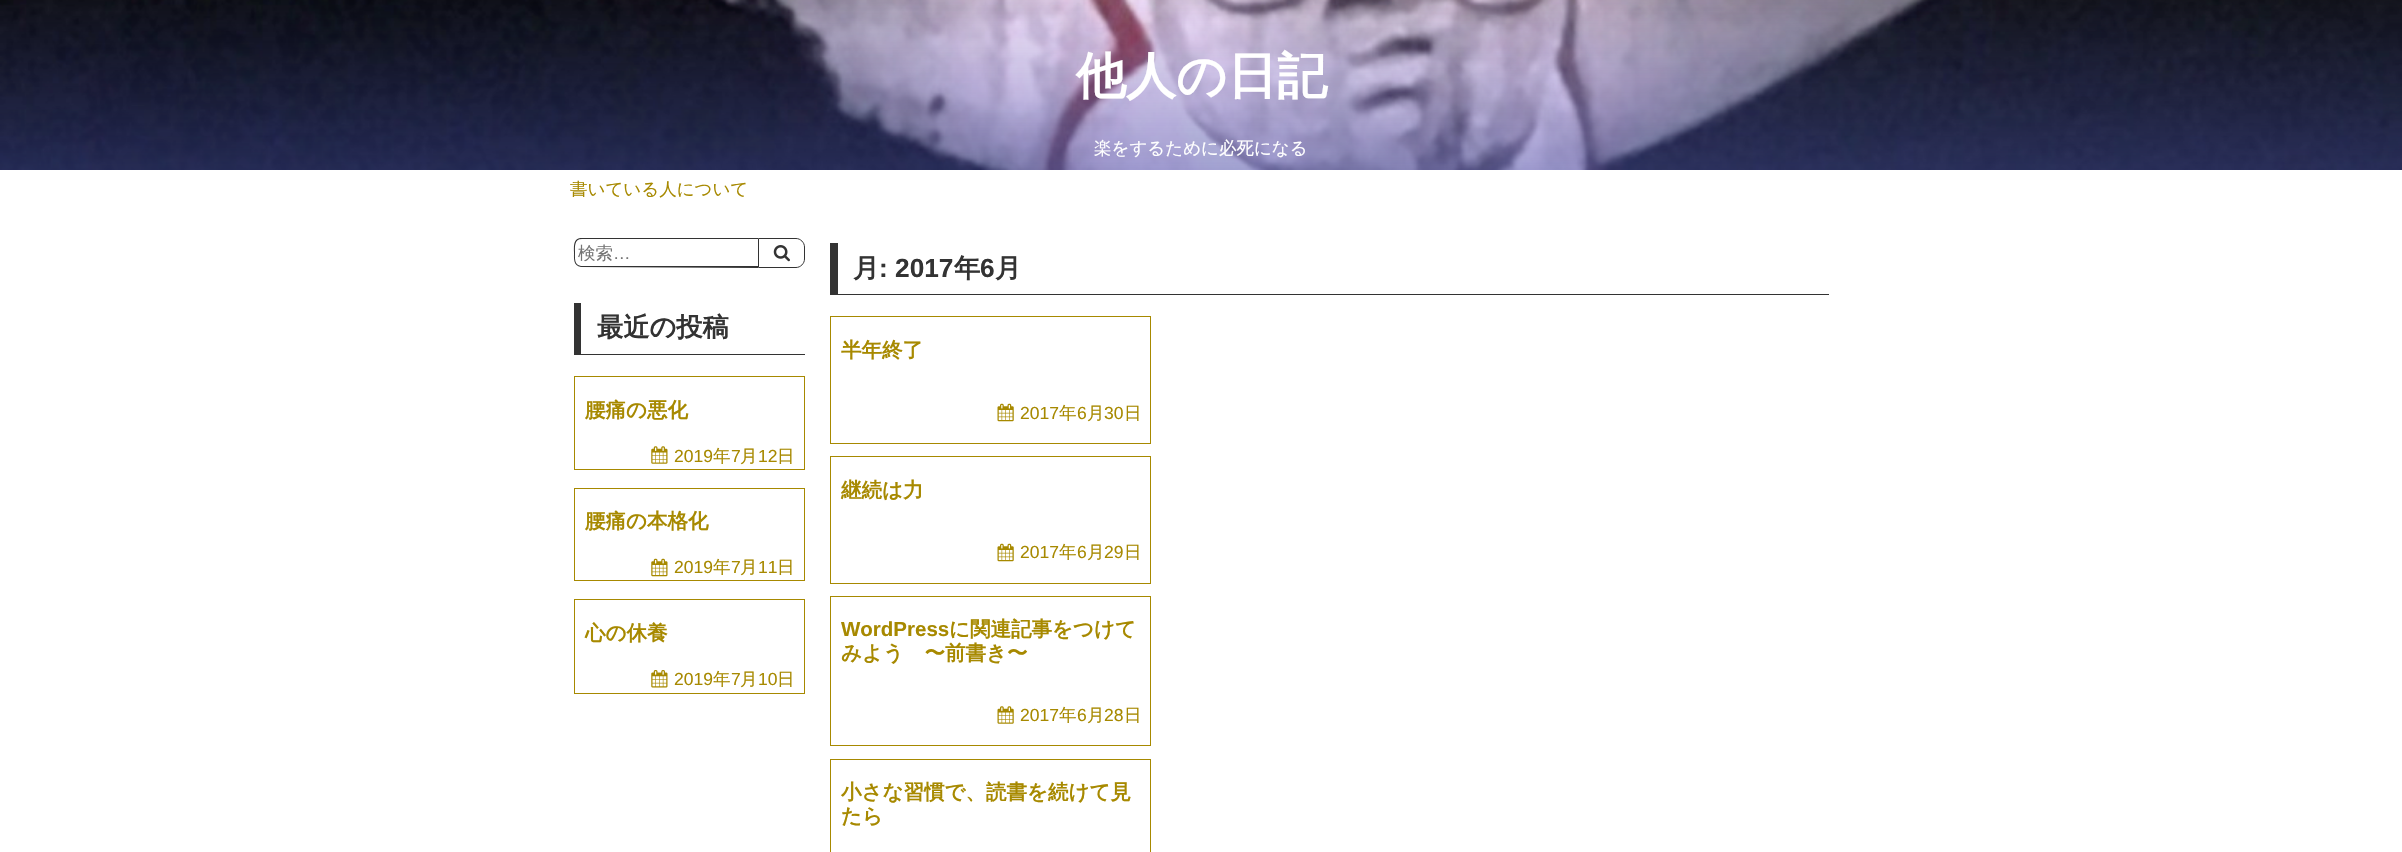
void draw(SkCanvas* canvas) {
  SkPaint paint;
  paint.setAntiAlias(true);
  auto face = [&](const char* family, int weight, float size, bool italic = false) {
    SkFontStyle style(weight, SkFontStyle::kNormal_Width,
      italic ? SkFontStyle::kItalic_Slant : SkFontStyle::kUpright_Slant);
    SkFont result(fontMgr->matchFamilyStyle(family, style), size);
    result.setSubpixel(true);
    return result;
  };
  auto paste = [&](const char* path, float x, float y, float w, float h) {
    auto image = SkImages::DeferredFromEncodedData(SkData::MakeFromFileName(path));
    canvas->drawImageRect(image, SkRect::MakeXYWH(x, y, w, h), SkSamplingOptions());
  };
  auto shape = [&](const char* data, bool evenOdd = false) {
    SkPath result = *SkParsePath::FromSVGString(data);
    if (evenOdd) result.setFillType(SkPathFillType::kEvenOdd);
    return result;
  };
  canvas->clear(0xffffffff);
  paste("img/1.png", 0, 0, 2402, 170);
  paint.setColor(0xff333333);
  canvas->drawPath(shape("M582 238H758V268L581 267C573 266 574 258 574 252C574 246 573 238 582 238ZM582 239H758V266H581C574 265 575 258 575 252C575 247 574 239 582 239Z", true), paint);
  paint.setStroke(true);
  paint.setStrokeWidth(1);
  canvas->drawPath(shape("M758.5 238.5H796C800.5 238.5 804.5 242.5 804.5 247V259C804.5 263.5 800.5 267.5 796 267.5H758.5Z"), paint);
  paste("img/2.png", 773, 245, 17, 17);
  paint.setStroke(false);
  canvas->drawRect(SkRect::MakeXYWH(574, 354, 231, 1), paint);
  canvas->drawRect(SkRect::MakeXYWH(574, 303, 7, 52), paint);
  paint.setStroke(true);
  paint.setColor(0xffa78900);
  canvas->drawRect(SkRect::MakeXYWH(574.5f, 376.5f, 230, 93), paint);
  paste("img/3.png", 651, 446, 17, 18);
  canvas->drawRect(SkRect::MakeXYWH(574.5f, 488.5f, 230, 92), paint);
  paste("img/4.png", 651, 558, 17, 19);
  canvas->drawRect(SkRect::MakeXYWH(574.5f, 599.5f, 230, 94), paint);
  paste("img/5.png", 651, 670, 17, 18);
  paint.setStroke(false);
  paint.setColor(0xff333333);
  canvas->drawRect(SkRect::MakeXYWH(830, 294, 999, 1), paint);
  canvas->drawRect(SkRect::MakeXYWH(830, 243, 8, 52), paint);
  paint.setStroke(true);
  paint.setColor(0xffa78900);
  canvas->drawRect(SkRect::MakeXYWH(830.5f, 316.5f, 320, 127), paint);
  paste("img/6.png", 997, 403, 17, 19);
  canvas->drawRect(SkRect::MakeXYWH(830.5f, 456.5f, 320, 127), paint);
  paste("img/6.png", 997, 543, 17, 19);
  canvas->drawRect(SkRect::MakeXYWH(830.5f, 596.5f, 320, 149), paint);
  paste("img/7.png", 997, 706, 17, 18);
  canvas->drawRect(SkRect::MakeXYWH(830.5f, 759.5f, 320, 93), paint);
  auto f0 = face("WenQuanYi Zen Hei", 700, 50);
  paint.setStroke(false);
  paint.setColor(0xffffffff);
  canvas->drawString("他人の日記", 1076, 93, f0, paint);
  auto f1 = face("WenQuanYi Zen Hei", 500, 17.5f);
  canvas->drawString("楽をするために必死になる", 1094, 154, f1, paint);
  paint.setColor(0xffa78900);
  canvas->drawString("書いている人について", 570, 195, f1, paint);
  paint.setColor(0xff757575);
  canvas->drawString("検索", 578, 259, f1, paint);
  auto f2 = face("Liberation Sans", 400, 17.5f);
  canvas->drawString("…", 613, 259, f2, paint);
  auto f3 = face("WenQuanYi Zen Hei", 700, 26.25f);
  paint.setColor(0xff333333);
  canvas->drawString("最近の投稿", 597, 336, f3, paint);
  auto f4 = face("WenQuanYi Zen Hei", 700, 20.5f);
  paint.setColor(0xffa78900);
  canvas->drawString("腰痛の悪化", 585, 417, f4, paint);
  canvas->drawString("2019", 674, 462, f2, paint);
  canvas->drawString("年", 713, 462, f1, paint);
  canvas->drawString("7", 731, 462, f2, paint);
  canvas->drawString("月", 740, 462, f1, paint);
  canvas->drawString("12", 758, 462, f2, paint);
  canvas->drawString("日", 777, 462, f1, paint);
  canvas->drawString("腰痛の本格化", 585, 528, f4, paint);
  canvas->drawString("2019", 674, 573, f2, paint);
  canvas->drawString("年", 713, 573, f1, paint);
  canvas->drawString("7", 731, 573, f2, paint);
  canvas->drawString("月", 740, 573, f1, paint);
  canvas->drawString("11", 758, 573, f2, paint);
  canvas->drawString("日", 777, 573, f1, paint);
  canvas->drawString("心の休養", 585, 640, f4, paint);
  canvas->drawString("2019", 674, 685, f2, paint);
  canvas->drawString("年", 713, 685, f1, paint);
  canvas->drawString("7", 731, 685, f2, paint);
  canvas->drawString("月", 740, 685, f1, paint);
  canvas->drawString("10", 758, 685, f2, paint);
  canvas->drawString("日", 777, 685, f1, paint);
  paint.setColor(0xff333333);
  canvas->drawString("月", 853, 277, f3, paint);
  auto f5 = face("Liberation Sans", 700, 26.25f);
  canvas->drawString(": 2017", 879, 277, f5, paint);
  canvas->drawString("年", 954, 277, f3, paint);
  canvas->drawString("6", 980, 277, f5, paint);
  canvas->drawString("月", 995, 277, f3, paint);
  paint.setColor(0xffa78900);
  canvas->drawString("半年終了", 841, 357, f4, paint);
  canvas->drawString("2017", 1020, 419, f2, paint);
  canvas->drawString("年", 1059, 419, f1, paint);
  canvas->drawString("6", 1077, 419, f2, paint);
  canvas->drawString("月", 1087, 419, f1, paint);
  canvas->drawString("30", 1104, 419, f2, paint);
  canvas->drawString("日", 1124, 419, f1, paint);
  canvas->drawString("継続は力", 841, 497, f4, paint);
  canvas->drawString("2017", 1020, 558, f2, paint);
  canvas->drawString("年", 1059, 558, f1, paint);
  canvas->drawString("6", 1077, 558, f2, paint);
  canvas->drawString("月", 1087, 558, f1, paint);
  canvas->drawString("29", 1104, 558, f2, paint);
  canvas->drawString("日", 1124, 558, f1, paint);
  auto f6 = face("Liberation Sans", 700, 20.5f);
  canvas->drawString("WordPress", 841, 636, f6, paint);
  canvas->drawString("に関連記事をつけて", 949, 636, f4, paint);
  canvas->drawString("みよう　〜前書き〜", 841, 660, f4, paint);
  canvas->drawString("2017", 1020, 721, f2, paint);
  canvas->drawString("年", 1059, 721, f1, paint);
  canvas->drawString("6", 1077, 721, f2, paint);
  canvas->drawString("月", 1087, 721, f1, paint);
  canvas->drawString("28", 1104, 721, f2, paint);
  canvas->drawString("日", 1124, 721, f1, paint);
  canvas->drawString("小さな習慣で、読書を続けて見", 841, 799, f4, paint);
  canvas->drawString("たら", 841, 823, f4, paint);
}
